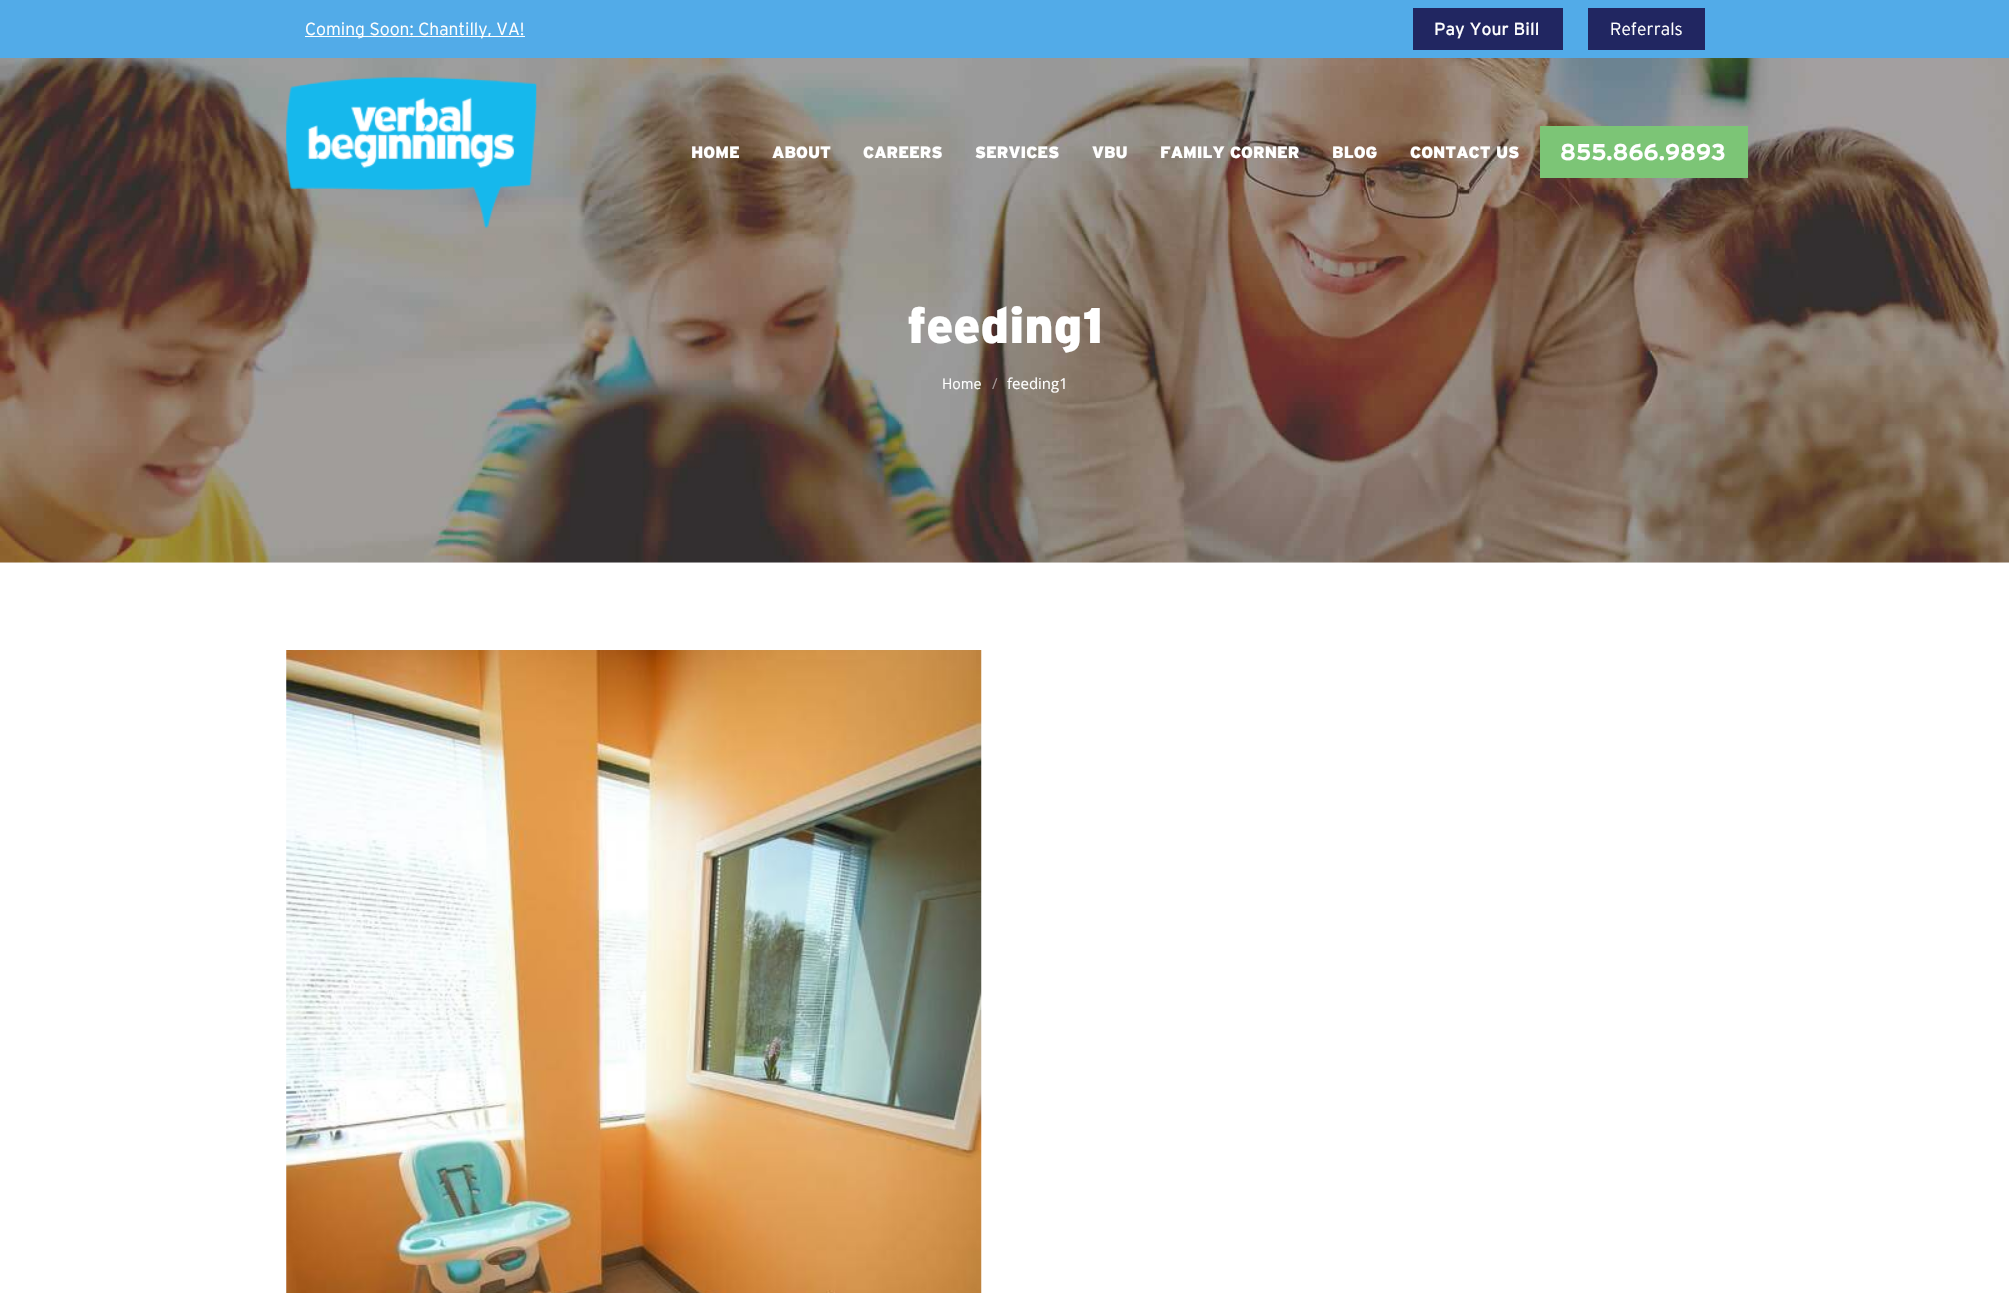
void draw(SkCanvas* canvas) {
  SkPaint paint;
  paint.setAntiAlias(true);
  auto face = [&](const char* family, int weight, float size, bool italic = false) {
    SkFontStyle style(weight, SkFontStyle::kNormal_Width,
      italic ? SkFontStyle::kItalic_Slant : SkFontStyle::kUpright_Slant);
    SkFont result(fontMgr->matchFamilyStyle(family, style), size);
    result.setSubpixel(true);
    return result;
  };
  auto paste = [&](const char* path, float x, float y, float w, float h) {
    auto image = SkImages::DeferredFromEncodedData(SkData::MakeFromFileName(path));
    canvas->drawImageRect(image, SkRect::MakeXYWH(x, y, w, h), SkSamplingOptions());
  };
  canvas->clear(0xffffffff);
  {
    const struct { float x, y, w, h; SkColor color; } items[] = {
      {0, 0, 2009, 58, 0xff52abe8},
      {305, 36, 220, 1, 0xffffffff},
      {1413, 8, 150, 42, 0xff212661},
      {1588, 8, 117, 42, 0xff212661},
      {0, 562, 2009, 1, 0xfff7f7f7},
    };
    for (auto [x, y, w, h, color] : items) {
      paint.setColor(color);
      canvas->drawRect(SkRect::MakeXYWH(x, y, w, h), paint);
    }
  }
  paste("img/2.png", 0, 58, 2009, 505);
  paste("img/1.png", 286, 77, 251, 151);
  paint.setColor(0xff7cc576);
  canvas->drawRect(SkRect::MakeXYWH(1540, 126, 208, 52), paint);
  paste("img/3.png", 286, 650, 696, 643);
  auto f0 = face("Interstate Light", 300, 17.5f);
  paint.setColor(0xffffffff);
  canvas->drawString("Coming Soon: Chantilly, VA!", 305, 35, f0, paint);
  auto f1 = face("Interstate", 400, 17.5f);
  canvas->drawString("Pay Your Bill", 1434, 35, f1, paint);
  canvas->drawString("Referrals", 1610, 35, f0, paint);
  auto f2 = face("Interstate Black", 900, 16.25f);
  {
    const struct { const char* s; float x, y; } items[] = {
      {"HOME", 691, 158},
      {"ABOUT", 772, 158},
      {"CAREERS", 863, 158},
      {"SERVICES", 975, 158},
      {"VBU", 1092, 158},
      {"FAMILY CORNER", 1160, 158},
      {"BLOG", 1332, 158},
      {"CONTACT US", 1410, 158},
    };
    for (auto [s, x, y] : items) {
      canvas->drawString(s, x, y, f2, paint);
    }
  }
  auto f3 = face("Interstate", 700, 22.75f);
  canvas->drawString("855.866.9893", 1560, 160, f3, paint);
  auto f4 = face("Interstate Black", 900, 50);
  canvas->drawString("feeding1", 907, 343, f4, paint);
  auto f5 = face("Interstate Light", 300, 15);
  canvas->drawString("Home", 942, 389, f5, paint);
  auto f6 = face("Open Sans", 400, 15);
  paint.setColor(0xffa39796);
  canvas->drawString("/", 992, 389, f6, paint);
  paint.setColor(0xffffffff);
  canvas->drawString("feeding1", 1007, 389, f6, paint);
}
